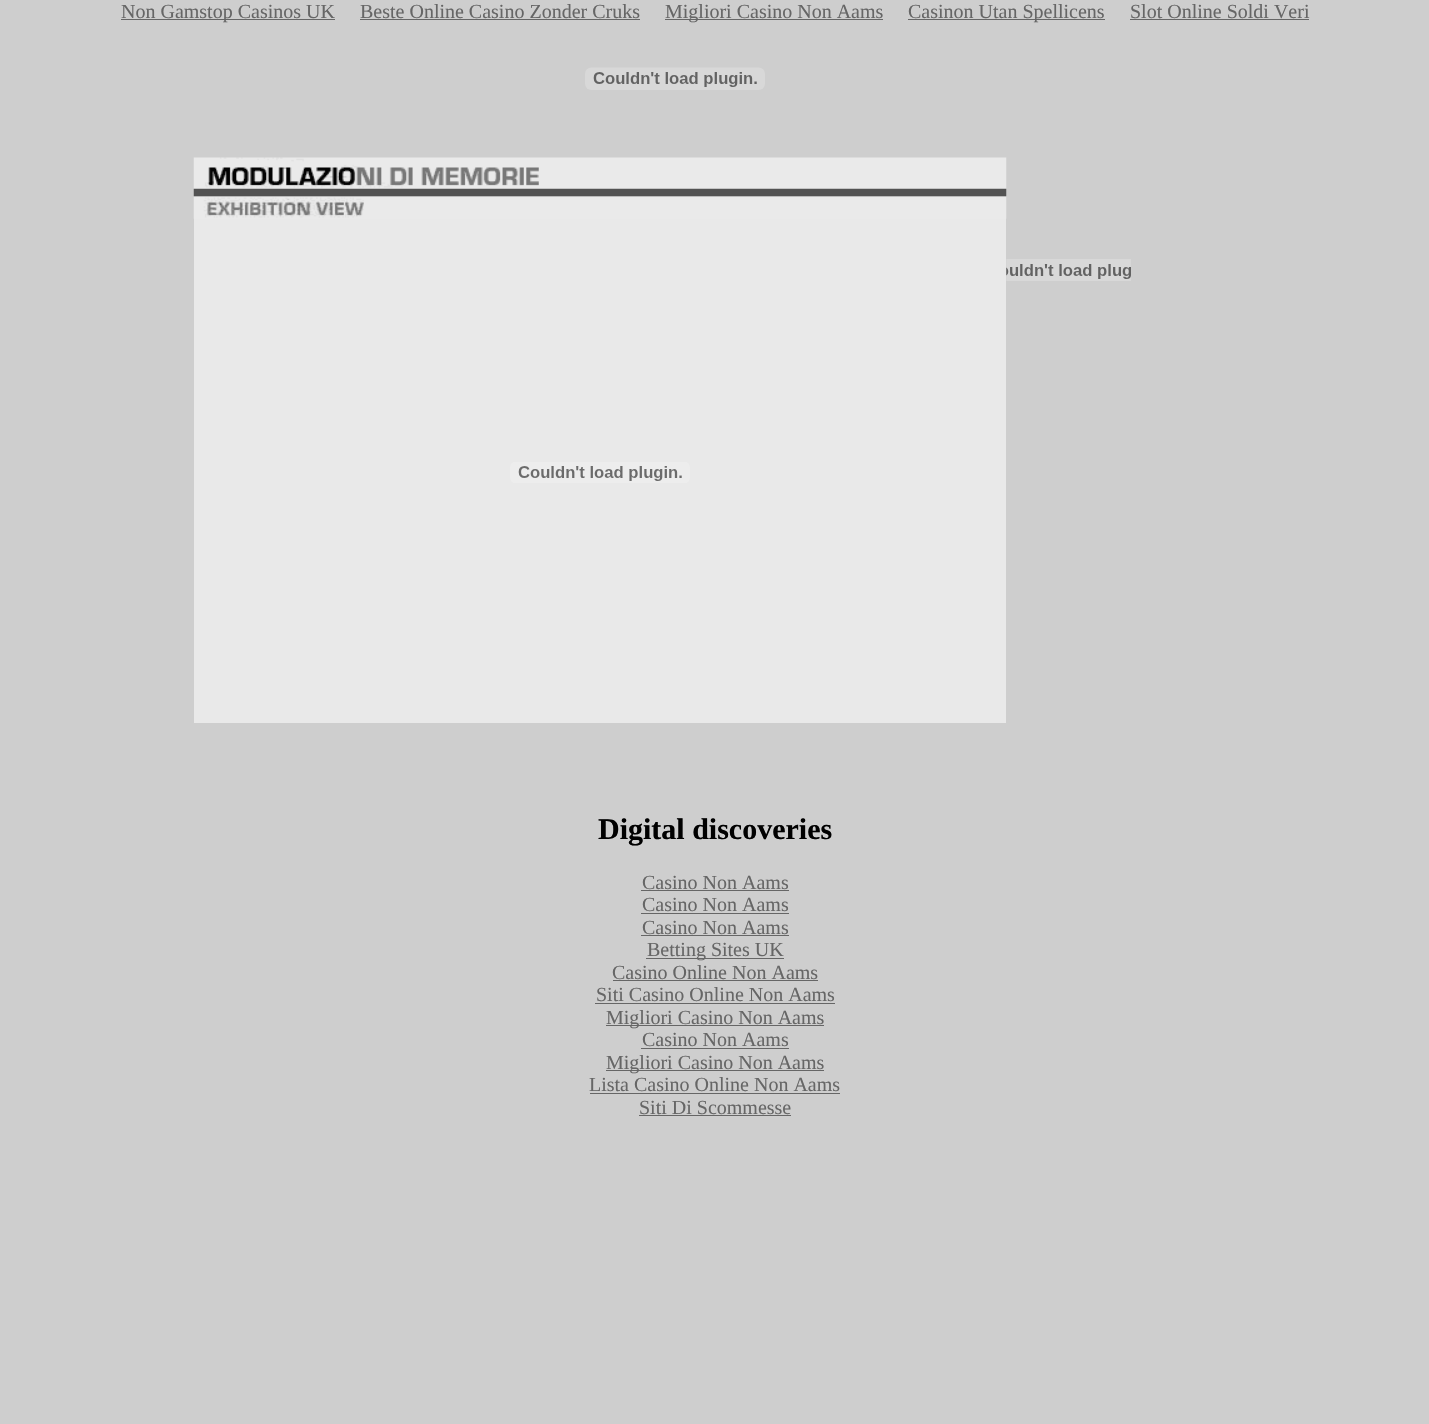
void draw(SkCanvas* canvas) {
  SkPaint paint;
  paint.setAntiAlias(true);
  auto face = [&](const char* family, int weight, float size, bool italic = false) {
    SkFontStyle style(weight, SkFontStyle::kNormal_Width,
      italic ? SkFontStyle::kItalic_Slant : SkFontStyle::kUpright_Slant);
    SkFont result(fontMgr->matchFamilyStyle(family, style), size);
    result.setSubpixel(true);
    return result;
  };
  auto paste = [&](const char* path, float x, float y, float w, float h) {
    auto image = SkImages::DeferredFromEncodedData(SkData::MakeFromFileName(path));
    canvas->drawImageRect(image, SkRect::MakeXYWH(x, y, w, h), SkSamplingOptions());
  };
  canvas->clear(0xffcecece);
  {
    const struct { float x, y, w, h; SkColor color; } items[] = {
      {121, 19, 214, 1, 0xff666666},
      {360, 19, 280, 1, 0xff666666},
      {665, 19, 218, 1, 0xff666666},
      {908, 19, 197, 1, 0xff666666},
      {1130, 19, 179, 1, 0xff666666},
    };
    for (auto [x, y, w, h, color] : items) {
      paint.setColor(color);
      canvas->drawRect(SkRect::MakeXYWH(x, y, w, h), paint);
    }
  }
  paste("img/1.png", 585, 67, 180, 23);
  paint.setColor(0xffe9e9e9);
  canvas->drawRect(SkRect::MakeXYWH(194, 218, 812, 505), paint);
  paste("img/2.png", 193, 157, 814, 62);
  paste("img/3.png", 510, 462, 180, 21);
  paste("img/4.png", 1006, 259, 125, 22);
  {
    const struct { float x, y, w, h; SkColor color; } items[] = {
      {641, 890, 148, 1, 0xff666666},
      {641, 913, 148, 1, 0xff666666},
      {641, 935, 148, 1, 0xff666666},
      {646, 958, 138, 1, 0xff666666},
      {613, 980, 205, 1, 0xff666666},
      {595, 1003, 240, 1, 0xff666666},
      {606, 1025, 218, 1, 0xff666666},
      {641, 1048, 148, 1, 0xff666666},
      {606, 1070, 218, 1, 0xff666666},
      {590, 1093, 250, 1, 0xff666666},
      {639, 1115, 152, 1, 0xff666666},
    };
    for (auto [x, y, w, h, color] : items) {
      paint.setColor(color);
      canvas->drawRect(SkRect::MakeXYWH(x, y, w, h), paint);
    }
  }
  auto f0 = face("Liberation Serif", 400, 20);
  {
    const struct { const char* s; float x, y; } items[] = {
      {"Non Gamstop Casinos UK", 121, 18},
      {"Beste Online Casino Zonder Cruks", 360, 18},
      {"Migliori Casino Non Aams", 665, 18},
      {"Casinon Utan Spellicens", 908, 18},
      {"Slot Online Soldi Veri", 1130, 18},
    };
    for (auto [s, x, y] : items) {
      canvas->drawString(s, x, y, f0, paint);
    }
  }
  auto f1 = face("Liberation Serif", 700, 30);
  paint.setColor(0xff000000);
  canvas->drawString("Digital discoveries", 598, 839, f1, paint);
  paint.setColor(0xff666666);
  {
    const struct { const char* s; float x, y; } items[] = {
      {"Casino Non Aams", 642, 889},
      {"Casino Non Aams", 642, 911},
      {"Casino Non Aams", 642, 934},
      {"Betting Sites UK", 647, 956},
      {"Casino Online Non Aams", 612, 979},
      {"Siti Casino Online Non Aams", 596, 1001},
      {"Migliori Casino Non Aams", 606, 1024},
      {"Casino Non Aams", 642, 1046},
      {"Migliori Casino Non Aams", 606, 1069},
      {"Lista Casino Online Non Aams", 589, 1091},
      {"Siti Di Scommesse", 639, 1114},
    };
    for (auto [s, x, y] : items) {
      canvas->drawString(s, x, y, f0, paint);
    }
  }
}
